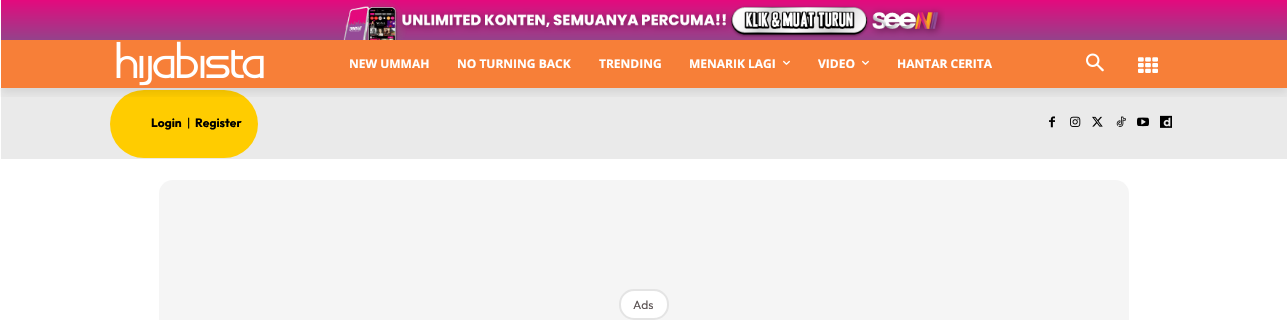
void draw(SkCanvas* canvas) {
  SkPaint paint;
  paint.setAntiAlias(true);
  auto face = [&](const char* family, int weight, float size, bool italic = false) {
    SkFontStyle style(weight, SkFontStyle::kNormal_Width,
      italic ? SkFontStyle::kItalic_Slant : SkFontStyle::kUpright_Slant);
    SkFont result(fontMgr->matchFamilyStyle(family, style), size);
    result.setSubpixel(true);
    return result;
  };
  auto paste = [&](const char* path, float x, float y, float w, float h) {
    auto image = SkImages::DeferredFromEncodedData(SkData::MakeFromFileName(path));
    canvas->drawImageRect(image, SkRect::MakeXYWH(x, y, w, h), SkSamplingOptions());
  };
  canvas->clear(0xffffffff);
  {
    const SkColor colors[] = {0xff94428b, 0xffe4097d};
    const float stops[] = {0, 1};
    const SkPoint ends[] = {{644, 40}, {644, 0}};
    paint.setShader(SkGradientShader::MakeLinear(ends, colors, stops, 2, SkTileMode::kClamp));
    paint.setAlpha(255);
  }
  canvas->drawRect(SkRect::MakeXYWH(1, 0, 1286, 40), paint);
  paste("img/1.png", 343, 0, 602, 40);
  paint.setShader(nullptr);
  paint.setColor(0xfff77f38);
  canvas->drawRect(SkRect::MakeXYWH(1, 40, 1286, 48), paint);
  paste("img/2.png", 116, 41, 148, 45);
  paste("img/5.png", 1138, 57, 20, 16);
  paint.setColor(0xffeaeaea);
  canvas->drawRect(SkRect::MakeXYWH(1, 88, 1286, 71), paint);
  paint.setColor(0xffffcc00);
  canvas->drawRoundRect(SkRect::MakeXYWH(110, 90, 148, 68), 34, 34, paint);
  canvas->save();
  canvas->clipRect(SkRect::MakeXYWH(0, 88, 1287, 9));
  paint.setColor(0x14000000);
  paint.setMaskFilter(SkMaskFilter::MakeBlur(kNormal_SkBlurStyle, 4));
  canvas->drawRect(SkRect::MakeXYWH(1, 46, 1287, 48), paint);
  paint.setMaskFilter(nullptr);
  canvas->restore();
  paste("img/3.png", 783, 60, 7, 5);
  paste("img/3.png", 862, 60, 7, 5);
  paste("img/4.png", 1086, 53, 18, 19);
  paste("img/6.png", 1049, 116, 6, 12);
  paste("img/7.png", 1070, 116, 11, 11);
  paste("img/8.png", 1092, 116, 11, 11);
  paste("img/9.png", 1116, 116, 10, 11);
  paste("img/10.png", 1137, 117, 12, 10);
  paste("img/11.png", 1160, 115, 12, 13);
  paint.setColor(0xfff5f5f5);
  canvas->drawRoundRect(SkRect::MakeXYWH(159, 180, 970, 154), 14, 14, paint);
  paint.setColor(0xffffffff);
  canvas->drawRoundRect(SkRect::MakeXYWH(620, 290, 48, 29), 14, 14, paint);
  paint.setStroke(true);
  paint.setStrokeWidth(2);
  paint.setColor(0xffe4e4e4);
  canvas->drawRoundRect(SkRect::MakeXYWH(620, 290, 48, 29), 14, 14, paint);
  auto f0 = face("Open Sans", 700, 12);
  paint.setStroke(false);
  paint.setColor(0xffffffff);
  {
    const struct { const char* s; float x, y; } items[] = {
      {"NEW UMMAH", 349, 68},
      {"NO TURNING BACK", 457, 68},
      {"TRENDING", 599, 68},
      {"MENARIK LAGI", 689, 68},
      {"VIDEO", 818, 68},
      {"HANTAR CERITA", 897, 68},
    };
    for (auto [s, x, y] : items) {
      canvas->drawString(s, x, y, f0, paint);
    }
  }
  auto f1 = face("Outfit", 700, 12);
  paint.setColor(0xff000000);
  canvas->drawString("Login", 151, 127, f1, paint);
  auto f2 = face("Outfit", 400, 12);
  canvas->drawString("|", 187, 127, f2, paint);
  canvas->drawString("Register", 195, 127, f1, paint);
  paint.setColor(0xff5d5555);
  canvas->drawString("Ads", 633, 309, f2, paint);
}
